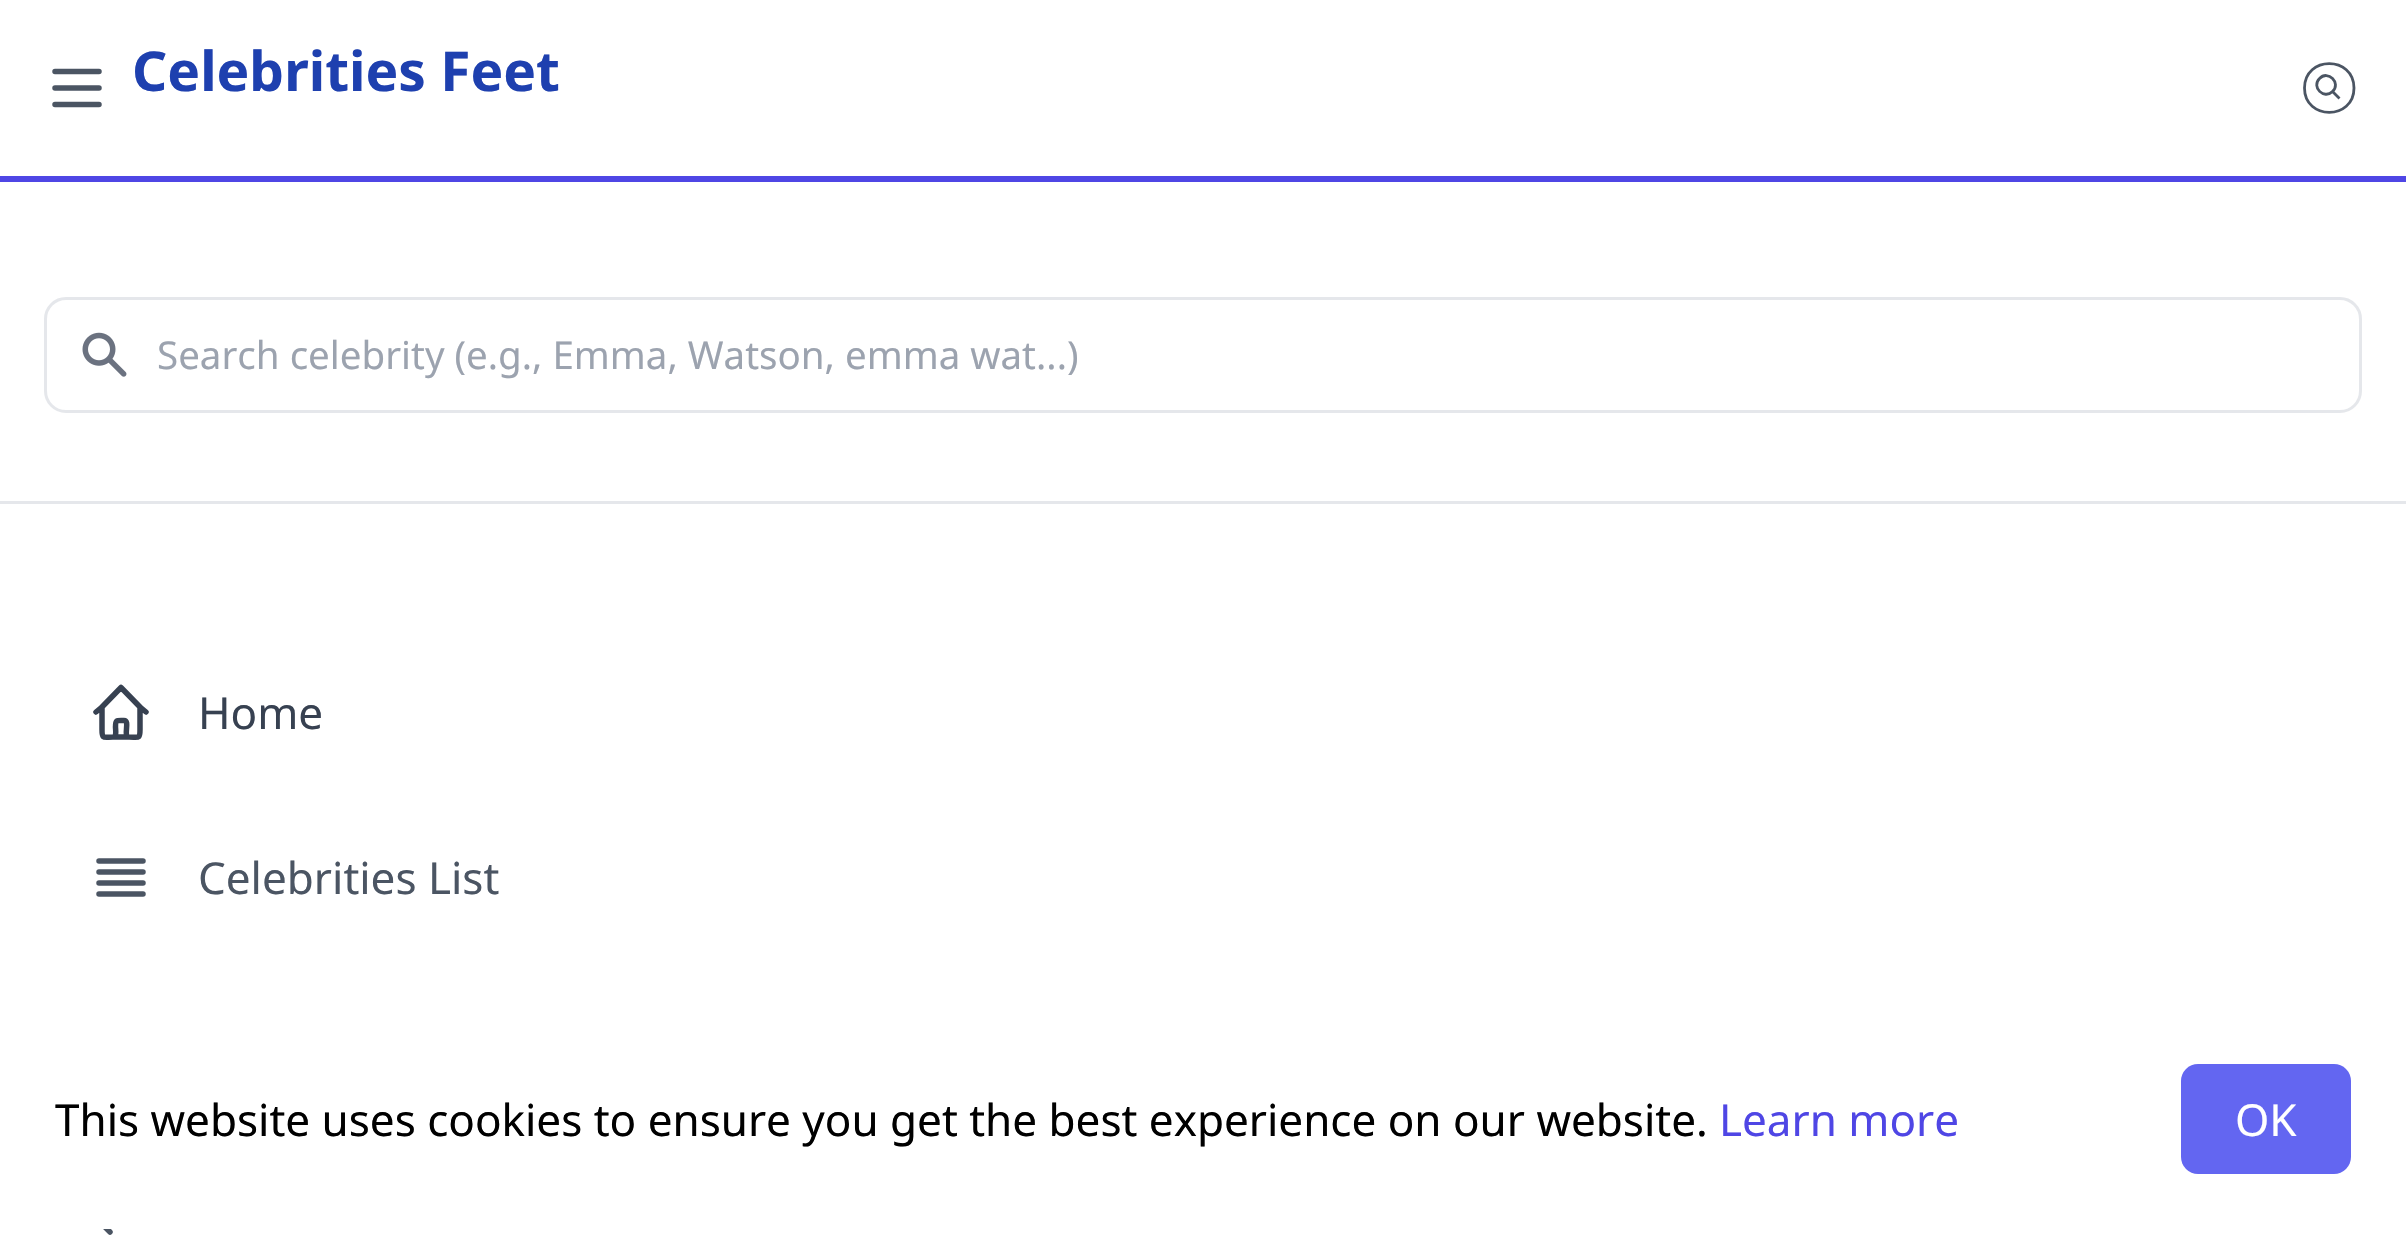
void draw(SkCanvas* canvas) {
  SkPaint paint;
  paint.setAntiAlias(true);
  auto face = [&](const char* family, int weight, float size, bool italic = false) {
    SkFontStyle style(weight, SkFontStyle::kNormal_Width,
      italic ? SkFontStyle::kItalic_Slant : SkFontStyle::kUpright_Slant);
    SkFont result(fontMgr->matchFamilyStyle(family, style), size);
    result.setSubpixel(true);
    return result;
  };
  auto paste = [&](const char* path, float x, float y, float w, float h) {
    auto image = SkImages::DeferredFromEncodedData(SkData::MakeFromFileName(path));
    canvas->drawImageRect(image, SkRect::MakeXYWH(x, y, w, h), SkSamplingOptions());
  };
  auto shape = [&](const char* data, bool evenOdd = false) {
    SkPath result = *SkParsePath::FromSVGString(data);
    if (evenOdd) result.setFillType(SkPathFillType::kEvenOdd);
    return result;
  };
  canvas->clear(0xffffffff);
  paint.setColor(0xff4f46e5);
  canvas->drawRect(SkRect::MakeXYWH(0, 176, 2406, 6), paint);
  paint.setStroke(true);
  paint.setStrokeWidth(5.5f);
  paint.setStrokeCap(SkPaint::kRound_Cap);
  paint.setStrokeJoin(SkPaint::kRound_Join);
  paint.setColor(0xff4b5563);
  canvas->drawPath(shape("M55 71.5H99M55 88H99M55 104.5H99"), paint);
  paint.setStrokeWidth(2.8f);
  paint.setStrokeCap(SkPaint::kButt_Cap);
  paint.setStrokeJoin(SkPaint::kMiter_Join);
  canvas->drawPath(shape("M2339.5 98.5L2332.5 91.5M2332.5 91.5C2341.5 83 2328 69.5 2319.5 78.5C2311 87 2324 100 2332.5 91.5ZM2354 88C2354 120.5 2304.5 120.5 2304.5 88C2304.5 55.5 2354 55.5 2354 88Z"), paint);
  paint.setStroke(false);
  paint.setColor(0xffe5e7eb);
  canvas->drawRect(SkRect::MakeXYWH(0, 501, 2406, 3), paint);
  paint.setStroke(true);
  paint.setStrokeWidth(3);
  canvas->drawRoundRect(SkRect::MakeXYWH(45.5f, 298.5f, 2315, 113), 20.5f, 20.5f, paint);
  paste("img/1.png", 82, 332, 45, 45);
  paint.setStrokeWidth(5.5f);
  paint.setStrokeCap(SkPaint::kRound_Cap);
  paint.setStrokeJoin(SkPaint::kRound_Join);
  paint.setColor(0xff374151);
  canvas->drawPath(shape("M96 712L102 707M102 707L121 687.5L140 707M102 707V729.5C102 739.5 103.5 737 113 737M140 707L146 712M140 707V729.5C140 739.5 138.5 737 129 737M113 737C117 737 115.5 729.5 115.5 727C115.5 719.5 116.5 720.5 124 720.5C130.5 720.5 122.5 737 129 737M113 737H129"), paint);
  paint.setColor(0xff4b5563);
  canvas->drawPath(shape("M99 861H143M99 872H143M99 883H143M99 894H143"), paint);
  canvas->drawPath(shape("M110 1193.5H143M143 1193.5L132 1182.5M143 1193.5L132 1204.5M132 1221H99M99 1221L110 1232M99 1221L110 1210"), paint);
  paint.setStroke(false);
  paint.setColor(0xffffffff);
  canvas->drawRoundRect(SkRect::MakeXYWH(0, 1009, 2406, 220), 22, 22, paint);
  paint.setColor(0xff6366f1);
  canvas->drawRoundRect(SkRect::MakeXYWH(2181, 1064, 170, 110), 17, 17, paint);
  auto f0 = face("Noto Sans", 700, 55);
  paint.setColor(0xff1e40af);
  canvas->drawString("Celebrities Feet", 132, 91, f0, paint);
  auto f1 = face("Noto Sans", 400, 38.5f);
  paint.setColor(0xff9ca3af);
  canvas->drawString("Search celebrity (e.g., Emma, Watson, emma wat...)", 157, 369, f1, paint);
  auto f2 = face("Noto Sans", 400, 44);
  paint.setColor(0xff374151);
  canvas->drawString("Home", 198, 729, f2, paint);
  paint.setColor(0xff4b5563);
  canvas->drawString("Celebrities List", 198, 894, f2, paint);
  paint.setColor(0xff000000);
  canvas->drawString("This website uses cookies to ensure you get the best experience on our website.", 55, 1136, f2, paint);
  paint.setColor(0xff4f46e5);
  canvas->drawString("Learn more", 1719, 1136, f2, paint);
  paint.setColor(0xffffffff);
  canvas->drawString("OK", 2235, 1136, f2, paint);
}
